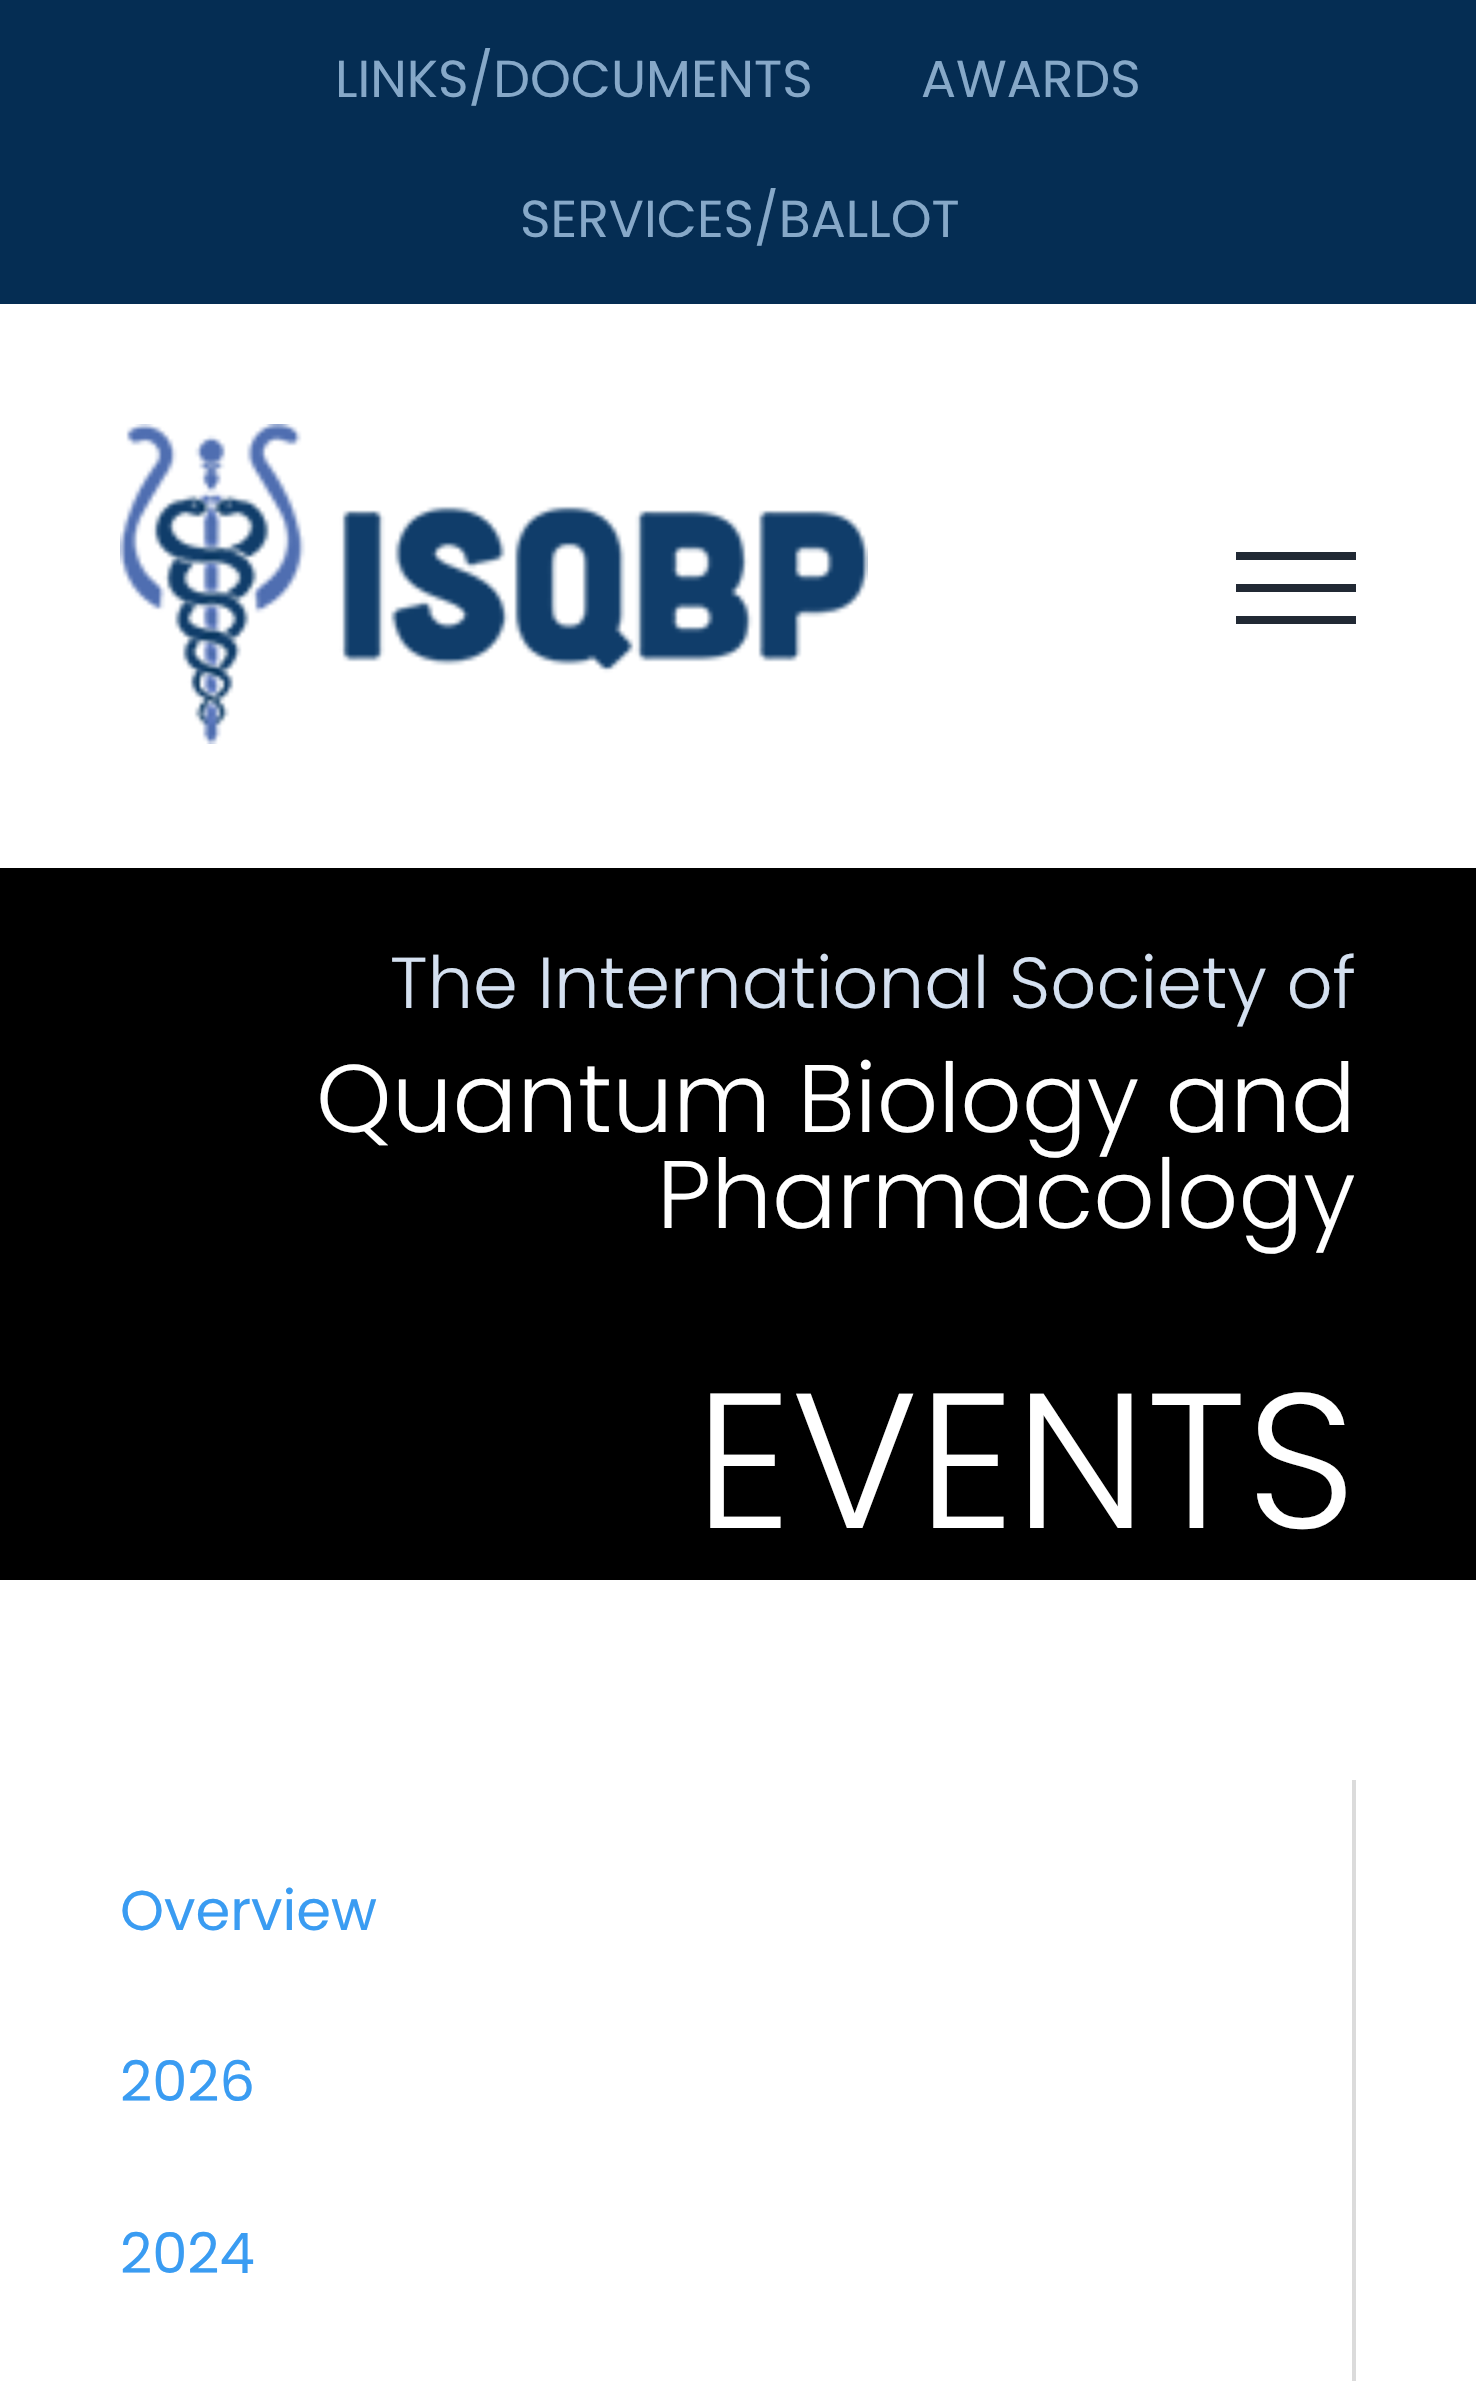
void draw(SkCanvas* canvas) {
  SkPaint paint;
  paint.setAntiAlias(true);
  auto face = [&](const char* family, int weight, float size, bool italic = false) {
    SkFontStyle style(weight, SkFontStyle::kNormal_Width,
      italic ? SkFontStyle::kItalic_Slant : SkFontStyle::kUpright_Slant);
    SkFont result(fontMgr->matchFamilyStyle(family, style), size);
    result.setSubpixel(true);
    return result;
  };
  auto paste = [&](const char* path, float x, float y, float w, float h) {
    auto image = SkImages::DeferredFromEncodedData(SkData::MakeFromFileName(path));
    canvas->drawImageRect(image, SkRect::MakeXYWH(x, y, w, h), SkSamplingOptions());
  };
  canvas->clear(0xffffffff);
  paint.setColor(0xff052d53);
  canvas->drawRect(SkRect::MakeXYWH(0, 0, 1476, 304), paint);
  paste("img/1.png", 120, 424, 748, 320);
  {
    const struct { float x, y, w, h; SkColor color; } items[] = {
      {1236, 552, 120, 8, 0xff212934},
      {1236, 584, 120, 8, 0xff212934},
      {1236, 616, 120, 8, 0xff212934},
      {0, 868, 1476, 712, 0xff000000},
      {1352, 1780, 4, 601, 0xffdbdbdb},
    };
    for (auto [x, y, w, h, color] : items) {
      paint.setColor(color);
      canvas->drawRect(SkRect::MakeXYWH(x, y, w, h), paint);
    }
  }
  auto f0 = face("Poppins", 400, 52);
  paint.setColor(0xff86a8c8);
  {
    const struct { const char* s; float x, y; } items[] = {
      {"LINKS/DOCUMENTS", 335, 97},
      {"AWARDS", 921, 97},
      {"SERVICES/BALLOT", 520, 237},
    };
    for (auto [s, x, y] : items) {
      canvas->drawString(s, x, y, f0, paint);
    }
  }
  auto f1 = face("Poppins", 300, 72);
  paint.setColor(0xffd4e0f0);
  canvas->drawString("The International Society of", 390, 1008, f1, paint);
  auto f2 = face("Poppins", 300, 96);
  paint.setColor(0xffffffff);
  canvas->drawString("Quantum Biology and", 316, 1132, f2, paint);
  canvas->drawString("Pharmacology", 657, 1228, f2, paint);
  auto f3 = face("Poppins", 300, 192);
  canvas->drawString("EVENTS", 695, 1528, f3, paint);
  auto f4 = face("Poppins", 400, 56);
  paint.setColor(0xff3a9cf2);
  {
    const struct { const char* s; float x, y; } items[] = {
      {"Overview", 120, 1930},
      {"2026", 120, 2101},
      {"2024", 120, 2273},
    };
    for (auto [s, x, y] : items) {
      canvas->drawString(s, x, y, f4, paint);
    }
  }
}
